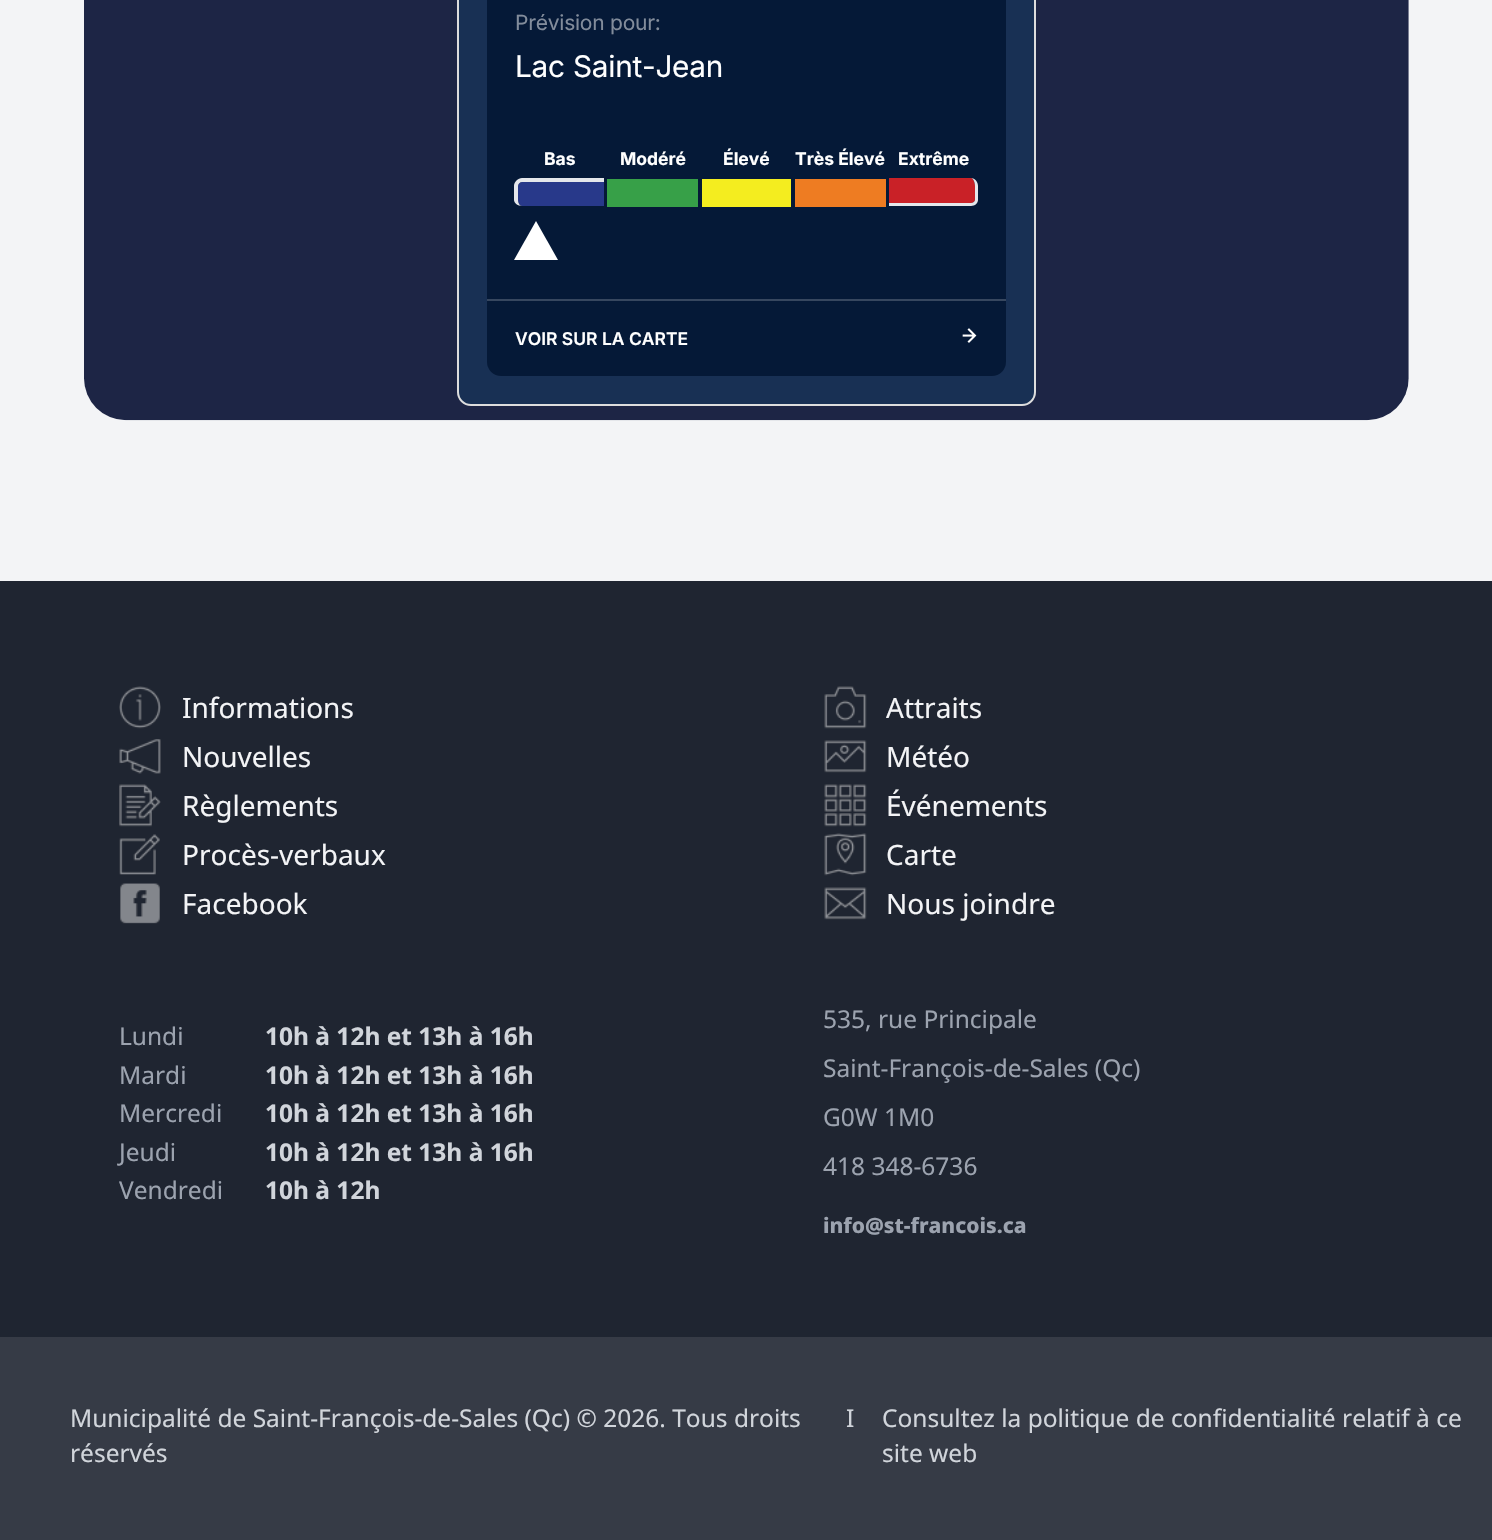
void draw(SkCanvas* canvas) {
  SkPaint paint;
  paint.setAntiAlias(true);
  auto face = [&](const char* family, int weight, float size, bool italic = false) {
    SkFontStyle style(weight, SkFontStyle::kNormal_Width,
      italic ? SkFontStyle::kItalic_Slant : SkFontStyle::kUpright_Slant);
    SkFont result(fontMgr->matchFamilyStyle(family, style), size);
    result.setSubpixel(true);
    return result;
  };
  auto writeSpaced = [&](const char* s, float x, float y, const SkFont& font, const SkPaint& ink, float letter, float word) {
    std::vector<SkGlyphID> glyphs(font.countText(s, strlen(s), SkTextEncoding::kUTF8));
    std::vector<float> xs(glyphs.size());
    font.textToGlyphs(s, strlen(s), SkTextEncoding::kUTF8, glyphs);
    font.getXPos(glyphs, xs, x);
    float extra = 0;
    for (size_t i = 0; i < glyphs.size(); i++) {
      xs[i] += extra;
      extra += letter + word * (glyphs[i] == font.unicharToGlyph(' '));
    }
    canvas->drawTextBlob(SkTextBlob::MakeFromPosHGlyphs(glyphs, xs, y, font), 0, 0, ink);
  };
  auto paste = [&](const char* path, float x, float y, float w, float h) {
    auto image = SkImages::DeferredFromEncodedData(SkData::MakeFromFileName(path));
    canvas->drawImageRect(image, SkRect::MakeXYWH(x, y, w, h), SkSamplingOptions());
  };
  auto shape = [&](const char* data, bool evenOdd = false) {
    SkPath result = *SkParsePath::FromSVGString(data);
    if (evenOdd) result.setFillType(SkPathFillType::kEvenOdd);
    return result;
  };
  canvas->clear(0xfff3f4f6);
  paste("img/1.png", 84, 0, 1325, 421);
  paint.setColor(0xff183054);
  canvas->drawRoundRect(SkRect::MakeXYWH(458, -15, 577, 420), 13, 13, paint);
  paint.setStroke(true);
  paint.setStrokeWidth(2);
  paint.setColor(0xffdddddd);
  canvas->drawRoundRect(SkRect::MakeXYWH(458, -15, 577, 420), 13, 13, paint);
  paint.setStroke(false);
  paint.setColor(0xff051937);
  canvas->drawRoundRect(SkRect::MakeXYWH(487, -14, 519, 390), 14, 14, paint);
  paint.setColor(0xff28398a);
  canvas->drawPath(shape("M522 182H604V206H522C520 206 518 203 518 200V186C518 184 520 182 522 182Z"), paint);
  paint.setColor(0xffe5e7eb);
  canvas->drawPath(shape("M522 178H604V206H522C518 206 514 203 514 200V186C514 182 518 178 522 178ZM522 182H604V206H522C520 206 518 203 518 200V186C518 184 520 182 522 182Z", true), paint);
  paint.setColor(0xffffffff);
  canvas->drawPath(shape("M536 221L558 260H514Z"), paint);
  {
    const struct { float x, y, w, h; SkColor color; } items[] = {
      {607, 179, 91, 28, 0xff37a048},
      {702, 179, 89, 28, 0xfff4ed1f},
      {795, 179, 91, 28, 0xffee7c22},
    };
    for (auto [x, y, w, h, color] : items) {
      paint.setColor(color);
      canvas->drawRect(SkRect::MakeXYWH(x, y, w, h), paint);
    }
  }
  paint.setColor(0xffc92127);
  canvas->drawPath(shape("M889 178H971C973 178 975 182 975 186V200C975 201 973 203 971 203H889Z"), paint);
  paint.setColor(0xffe5e7eb);
  canvas->drawPath(shape("M889 178H971C975 178 978 182 978 186V200C978 203 975 206 971 206H889ZM889 178H971C973 178 975 182 975 186V200C975 201 973 203 971 203H889Z", true), paint);
  paint.setColor(0xff37475f);
  canvas->drawRect(SkRect::MakeXYWH(487, 299, 519, 2), paint);
  paste("img/2.png", 962, 328, 15, 15);
  paint.setColor(0xff1f2531);
  canvas->drawRect(SkRect::MakeXYWH(0, 581, 1492, 756), paint);
  paste("img/3.png", 119, 686, 42, 43);
  paste("img/4.png", 119, 739, 42, 35);
  paste("img/5.png", 119, 784, 42, 43);
  paste("img/6.png", 119, 834, 41, 41);
  paste("img/7.png", 120, 883, 40, 41);
  paste("img/8.png", 824, 686, 43, 43);
  paste("img/9.png", 824, 740, 43, 33);
  paste("img/10.png", 824, 784, 43, 43);
  paste("img/11.png", 824, 833, 43, 43);
  paste("img/12.png", 824, 887, 43, 33);
  paint.setColor(0xff363b46);
  canvas->drawRect(SkRect::MakeXYWH(0, 1337, 1492, 203), paint);
  auto f0 = face("Inter", 400, 21);
  paint.setColor(0xff828c9b);
  writeSpaced("Prévision pour:", 515, 30, f0, paint, -0.25f, 0);
  auto f1 = face("Inter", 400, 29.75f);
  paint.setColor(0xffffffff);
  writeSpaced("Lac Saint-Jean", 515, 77, f1, paint, -0.25f, 0);
  auto f2 = face("Inter", 700, 17.5f);
  {
    const struct { const char* s; float x, y; } items[] = {
      {"Bas", 544, 165},
      {"Modéré", 620, 165},
      {"Élevé", 723, 165},
      {"Très Élevé", 795, 165},
      {"Extrême", 898, 165},
    };
    for (auto [s, x, y] : items) {
      canvas->drawString(s, x, y, f2, paint);
    }
  }
  auto f3 = face("Inter", 600, 17.5f);
  canvas->drawString("VOIR SUR LA CARTE", 515, 345, f3, paint);
  auto f4 = face("Noto Sans", 400, 28);
  paint.setColor(0xfff3f4f6);
  {
    const struct { const char* s; float x, y; } items[] = {
      {"Informations", 182, 718},
      {"Nouvelles", 182, 767},
      {"Règlements", 182, 816},
      {"Procès-verbaux", 182, 865},
      {"Facebook", 182, 914},
      {"Attraits", 886, 718},
      {"Météo", 886, 767},
      {"Événements", 886, 816},
      {"Carte", 886, 865},
      {"Nous joindre", 886, 914},
    };
    for (auto [s, x, y] : items) {
      canvas->drawString(s, x, y, f4, paint);
    }
  }
  auto f5 = face("Noto Sans", 400, 24.5f);
  paint.setColor(0xff9ca3af);
  canvas->drawString("Lundi", 119, 1045, f5, paint);
  auto f6 = face("Noto Sans", 700, 24.5f);
  paint.setColor(0xffd1d5db);
  canvas->drawString("10h à 12h et 13h à 16h", 265, 1045, f6, paint);
  paint.setColor(0xff9ca3af);
  canvas->drawString("Mardi", 119, 1084, f5, paint);
  paint.setColor(0xffd1d5db);
  canvas->drawString("10h à 12h et 13h à 16h", 265, 1084, f6, paint);
  paint.setColor(0xff9ca3af);
  canvas->drawString("Mercredi", 119, 1122, f5, paint);
  paint.setColor(0xffd1d5db);
  canvas->drawString("10h à 12h et 13h à 16h", 265, 1122, f6, paint);
  paint.setColor(0xff9ca3af);
  canvas->drawString("Jeudi", 119, 1161, f5, paint);
  paint.setColor(0xffd1d5db);
  canvas->drawString("10h à 12h et 13h à 16h", 265, 1161, f6, paint);
  paint.setColor(0xff9ca3af);
  canvas->drawString("Vendredi", 119, 1199, f5, paint);
  paint.setColor(0xffd1d5db);
  canvas->drawString("10h à 12h", 265, 1199, f6, paint);
  paint.setColor(0xff9ca3af);
  {
    const struct { const char* s; float x, y; } items[] = {
      {"535, rue Principale", 823, 1028},
      {"Saint-François-de-Sales (Qc)", 823, 1077},
      {"G0W 1M0", 823, 1126},
      {"418 348-6736", 823, 1175},
    };
    for (auto [s, x, y] : items) {
      canvas->drawString(s, x, y, f5, paint);
    }
  }
  auto f7 = face("Noto Sans", 800, 21);
  canvas->drawString("info@st-francois.ca", 823, 1233, f7, paint);
  paint.setColor(0xffd1d5db);
  {
    const struct { const char* s; float x, y; } items[] = {
      {"Municipalité de Saint-François-de-Sales (Qc) © 2026. Tous droits", 70, 1427},
      {"réservés", 70, 1462},
      {"I", 846, 1427},
      {"Consultez la politique de confidentialité relatif à ce", 882, 1427},
      {"site web", 882, 1462},
    };
    for (auto [s, x, y] : items) {
      canvas->drawString(s, x, y, f5, paint);
    }
  }
}
